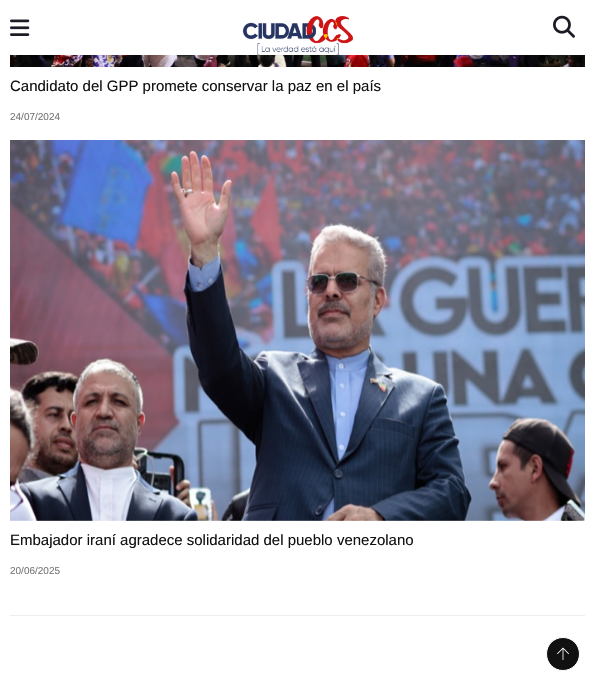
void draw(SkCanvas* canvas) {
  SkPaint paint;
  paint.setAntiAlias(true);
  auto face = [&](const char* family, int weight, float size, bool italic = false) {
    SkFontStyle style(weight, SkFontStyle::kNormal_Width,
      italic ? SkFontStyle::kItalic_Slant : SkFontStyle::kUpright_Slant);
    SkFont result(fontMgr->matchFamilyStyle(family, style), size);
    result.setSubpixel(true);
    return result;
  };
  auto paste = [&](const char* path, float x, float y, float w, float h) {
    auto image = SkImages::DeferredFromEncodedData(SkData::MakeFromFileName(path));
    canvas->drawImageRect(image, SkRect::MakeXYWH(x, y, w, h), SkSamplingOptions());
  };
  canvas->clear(0xffffffff);
  paste("img/1.png", 10, 19, 20, 17);
  paste("img/2.png", 242, 16, 111, 39);
  paste("img/3.png", 553, 15, 22, 23);
  paste("img/4.png", 10, 55, 575, 12);
  paste("img/5.png", 10, 140, 575, 381);
  paint.setColor(0xffeeeeee);
  canvas->drawRect(SkRect::MakeXYWH(10, 615, 575, 1), paint);
  paint.setColor(0xff111111);
  canvas->drawCircle(563, 654, 16.5f, paint);
  paint.setStroke(true);
  paint.setStrokeWidth(1);
  paint.setColor(0xffffffff);
  canvas->drawCircle(563, 654, 16.5f, paint);
  paste("img/6.png", 557, 647, 12, 14);
  auto f0 = face("Liberation Sans", 400, 15);
  paint.setStroke(false);
  paint.setColor(0xff111111);
  canvas->drawString("Candidato del GPP promete conservar la paz en el país", 10, 91, f0, paint);
  auto f1 = face("Liberation Sans", 400, 10);
  paint.setColor(0xff777777);
  canvas->drawString("24/07/2024", 10, 120, f1, paint);
  paint.setColor(0xff111111);
  canvas->drawString("Embajador iraní agradece solidaridad del pueblo venezolano", 10, 545, f0, paint);
  paint.setColor(0xff777777);
  canvas->drawString("20/06/2025", 10, 574, f1, paint);
}
